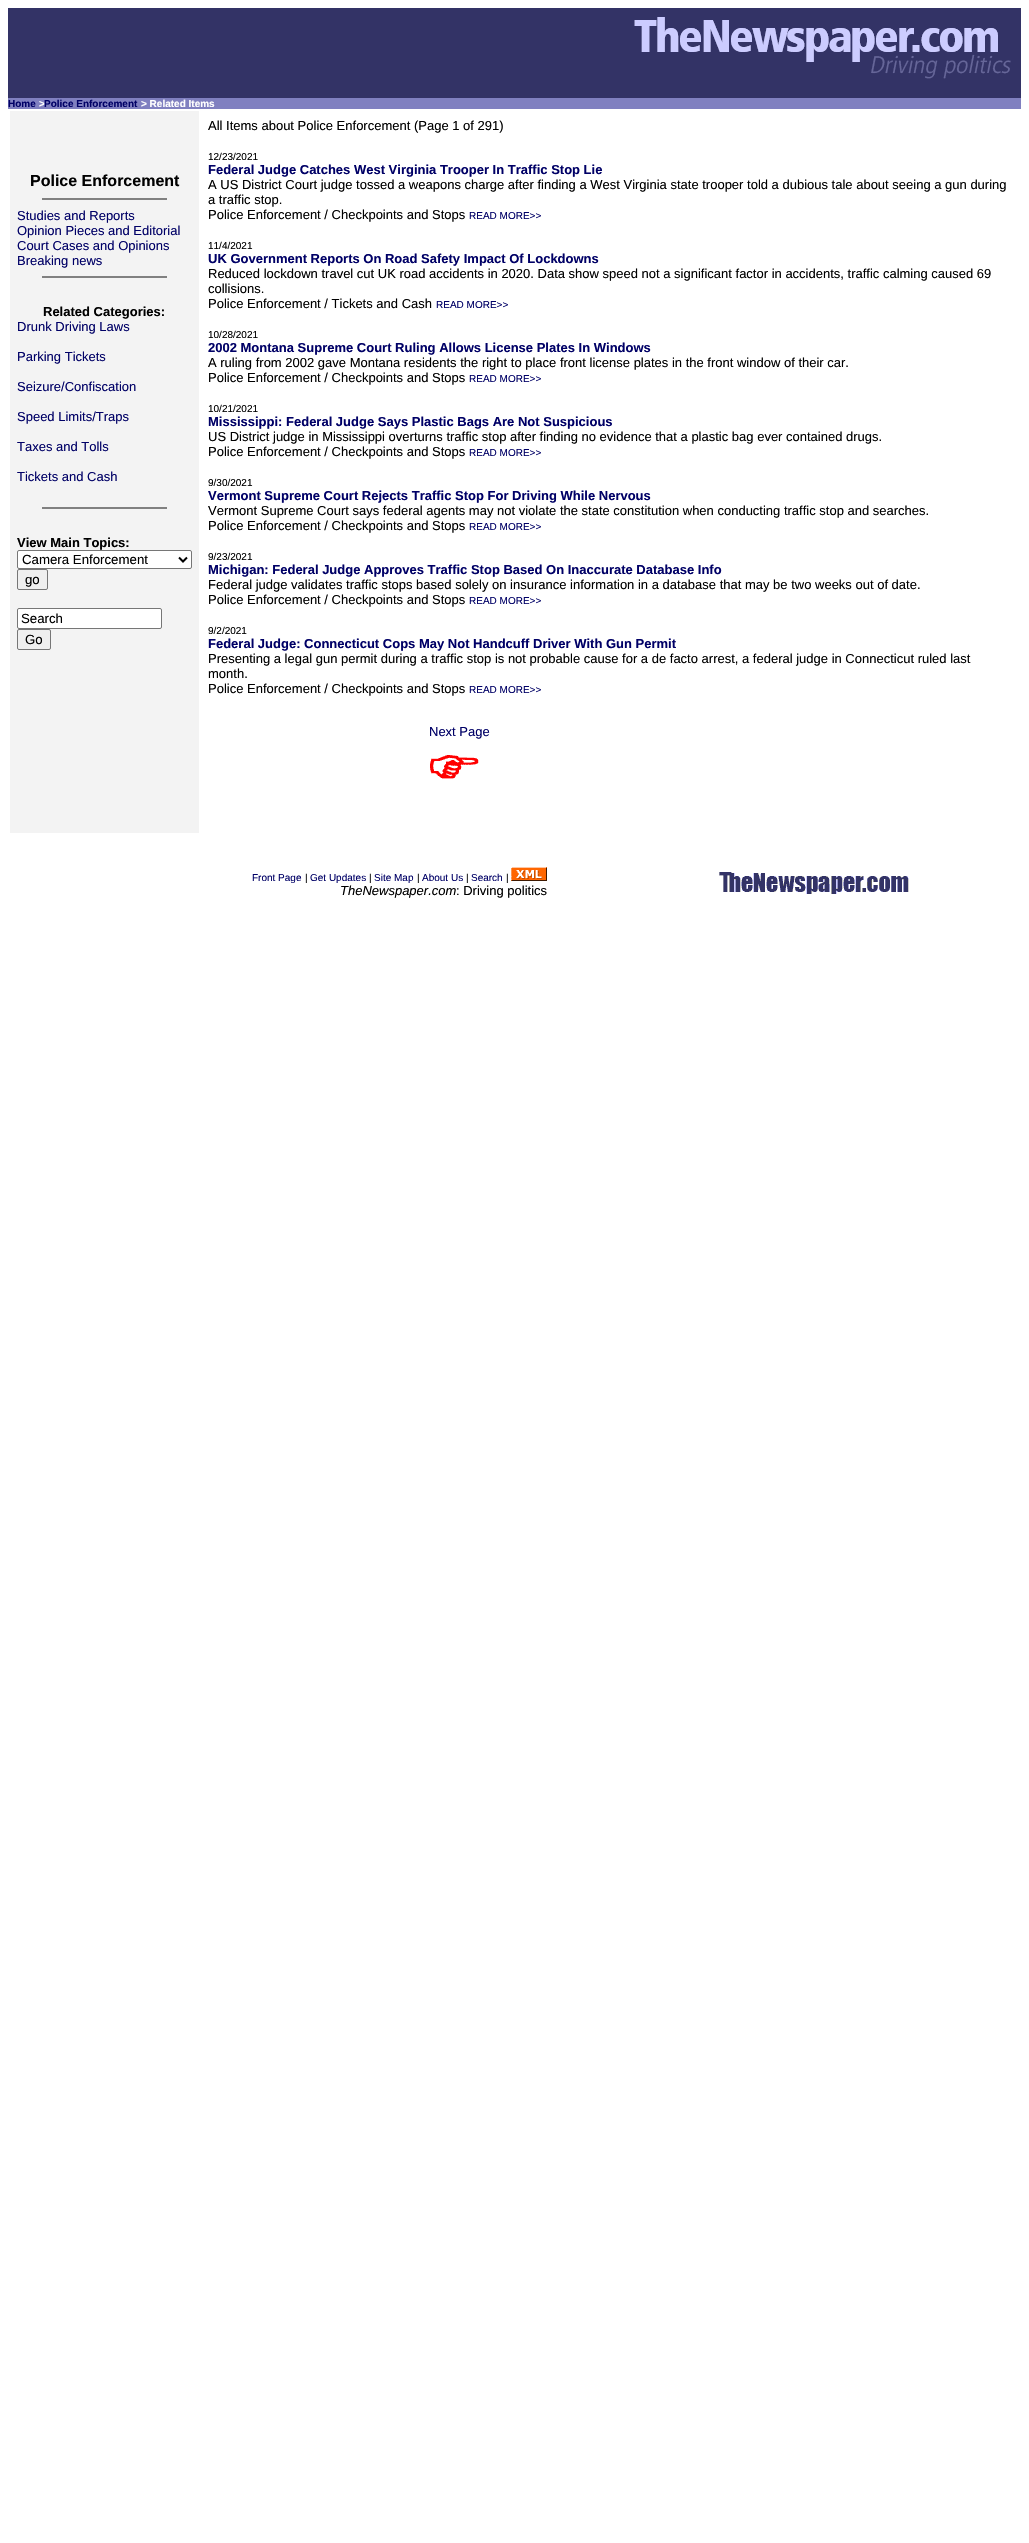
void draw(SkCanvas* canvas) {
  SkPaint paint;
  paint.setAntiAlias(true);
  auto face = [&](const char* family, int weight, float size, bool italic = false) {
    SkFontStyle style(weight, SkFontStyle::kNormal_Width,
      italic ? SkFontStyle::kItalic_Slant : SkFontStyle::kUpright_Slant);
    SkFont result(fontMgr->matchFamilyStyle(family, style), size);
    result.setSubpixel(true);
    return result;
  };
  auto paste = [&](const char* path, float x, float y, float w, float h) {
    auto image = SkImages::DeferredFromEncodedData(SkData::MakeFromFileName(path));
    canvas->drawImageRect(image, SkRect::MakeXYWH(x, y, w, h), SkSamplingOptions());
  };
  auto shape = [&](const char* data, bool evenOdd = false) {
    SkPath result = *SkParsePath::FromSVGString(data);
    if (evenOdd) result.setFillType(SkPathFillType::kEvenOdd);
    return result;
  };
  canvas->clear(0xffffffff);
  paint.setColor(0xff333366);
  canvas->drawRect(SkRect::MakeXYWH(8, 8, 1013, 90), paint);
  paste("img/1.png", 634, 17, 377, 62);
  {
    const struct { float x, y, w, h; SkColor color; } items[] = {
      {8, 98, 1013, 11, 0xff8080c0},
      {10, 111, 189, 722, 0xfff3f3f3},
      {42, 198, 125, 2, 0xff808080},
      {42, 276, 125, 2, 0xff808080},
      {42, 507, 125, 2, 0xff808080},
    };
    for (auto [x, y, w, h, color] : items) {
      paint.setColor(color);
      canvas->drawRect(SkRect::MakeXYWH(x, y, w, h), paint);
    }
  }
  paint.setColor(0xffffffff);
  canvas->drawRoundRect(SkRect::MakeXYWH(17.5f, 550.5f, 174, 18), 1.5f, 1.5f, paint);
  paint.setStroke(true);
  paint.setStrokeWidth(1);
  paint.setColor(0xff767676);
  canvas->drawRoundRect(SkRect::MakeXYWH(17.5f, 550.5f, 174, 18), 1.5f, 1.5f, paint);
  paint.setStrokeWidth(2);
  paint.setColor(0xff000000);
  canvas->drawPath(shape("M179 557.5L183 561.5L187 557.5"), paint);
  paint.setStroke(false);
  paint.setColor(0xffefefef);
  canvas->drawRoundRect(SkRect::MakeXYWH(17.5f, 569.5f, 30, 20), 1.5f, 1.5f, paint);
  paint.setStroke(true);
  paint.setStrokeWidth(1);
  paint.setColor(0xff767676);
  canvas->drawRoundRect(SkRect::MakeXYWH(17.5f, 569.5f, 30, 20), 1.5f, 1.5f, paint);
  paint.setStroke(false);
  paint.setColor(0xffffffff);
  canvas->drawRoundRect(SkRect::MakeXYWH(17.5f, 608.5f, 144, 20), 1.5f, 1.5f, paint);
  paint.setStroke(true);
  paint.setColor(0xff767676);
  canvas->drawRoundRect(SkRect::MakeXYWH(17.5f, 608.5f, 144, 20), 1.5f, 1.5f, paint);
  paint.setStroke(false);
  paint.setColor(0xffefefef);
  canvas->drawRoundRect(SkRect::MakeXYWH(17.5f, 629.5f, 33, 20), 1.5f, 1.5f, paint);
  paint.setStroke(true);
  paint.setColor(0xff767676);
  canvas->drawRoundRect(SkRect::MakeXYWH(17.5f, 629.5f, 33, 20), 1.5f, 1.5f, paint);
  paste("img/2.png", 430, 755, 49, 24);
  paste("img/3.png", 511, 867, 36, 14);
  paste("img/4.png", 719, 872, 190, 22);
  auto f0 = face("Liberation Sans", 700, 10);
  paint.setStroke(false);
  paint.setColor(0xff000066);
  canvas->drawString("Home", 8, 107, f0, paint);
  paint.setColor(0xffffffff);
  canvas->drawString(">", 39, 107, f0, paint);
  paint.setColor(0xff000066);
  canvas->drawString("Police Enforcement", 44, 107, f0, paint);
  paint.setColor(0xffffffff);
  canvas->drawString("> Related Items", 141, 107, f0, paint);
  auto f1 = face("Liberation Sans", 700, 16);
  paint.setColor(0xff000000);
  canvas->drawString("Police Enforcement", 30, 186, f1, paint);
  auto f2 = face("Liberation Sans", 400, 13);
  paint.setColor(0xff000066);
  {
    const struct { const char* s; float x, y; } items[] = {
      {"Studies and Reports", 17, 220},
      {"Opinion Pieces and Editorial", 17, 235},
      {"Court Cases and Opinions", 17, 250},
      {"Breaking news", 17, 265},
    };
    for (auto [s, x, y] : items) {
      canvas->drawString(s, x, y, f2, paint);
    }
  }
  auto f3 = face("Liberation Sans", 700, 13);
  paint.setColor(0xff000000);
  canvas->drawString("Related Categories:", 43, 316, f3, paint);
  paint.setColor(0xff000066);
  {
    const struct { const char* s; float x, y; } items[] = {
      {"Drunk Driving Laws", 17, 331},
      {"Parking Tickets", 17, 361},
      {"Seizure/Confiscation", 17, 391},
      {"Speed Limits/Traps", 17, 421},
      {"Taxes and Tolls", 17, 451},
      {"Tickets and Cash", 17, 481},
    };
    for (auto [s, x, y] : items) {
      canvas->drawString(s, x, y, f2, paint);
    }
  }
  paint.setColor(0xff000000);
  canvas->drawString("View Main Topics:", 17, 547, f3, paint);
  auto f4 = face("Liberation Sans", 400, 13.25f);
  {
    const struct { const char* s; float x, y; } items[] = {
      {"Camera Enforcement", 22, 564},
      {"go", 25, 584},
      {"Search", 21, 623},
      {"Go", 25, 644},
    };
    for (auto [s, x, y] : items) {
      canvas->drawString(s, x, y, f4, paint);
    }
  }
  canvas->drawString("All Items about Police Enforcement (Page 1 of 291)", 208, 130, f2, paint);
  auto f5 = face("Liberation Sans", 400, 10);
  canvas->drawString("12/23/2021", 208, 160, f5, paint);
  paint.setColor(0xff000066);
  canvas->drawString("Federal Judge Catches West Virginia Trooper In Traffic Stop Lie", 208, 174, f3, paint);
  paint.setColor(0xff000000);
  {
    const struct { const char* s; float x, y; } items[] = {
      {"A US District Court judge tossed a weapons charge after finding a West Virginia state trooper told a dubious tale about seeing a gun during", 208, 189},
      {"a traffic stop.", 208, 204},
      {"Police Enforcement / Checkpoints and Stops", 208, 219},
    };
    for (auto [s, x, y] : items) {
      canvas->drawString(s, x, y, f2, paint);
    }
  }
  paint.setColor(0xff000066);
  canvas->drawString("READ MORE>>", 469, 219, f5, paint);
  paint.setColor(0xff000000);
  canvas->drawString("11/4/2021", 208, 249, f5, paint);
  paint.setColor(0xff000066);
  canvas->drawString("UK Government Reports On Road Safety Impact Of Lockdowns", 208, 263, f3, paint);
  paint.setColor(0xff000000);
  {
    const struct { const char* s; float x, y; } items[] = {
      {"Reduced lockdown travel cut UK road accidents in 2020. Data show speed not a significant factor in accidents, traffic calming caused 69", 208, 278},
      {"collisions.", 208, 293},
      {"Police Enforcement / Tickets and Cash", 208, 308},
    };
    for (auto [s, x, y] : items) {
      canvas->drawString(s, x, y, f2, paint);
    }
  }
  paint.setColor(0xff000066);
  canvas->drawString("READ MORE>>", 436, 308, f5, paint);
  paint.setColor(0xff000000);
  canvas->drawString("10/28/2021", 208, 338, f5, paint);
  paint.setColor(0xff000066);
  canvas->drawString("2002 Montana Supreme Court Ruling Allows License Plates In Windows", 208, 352, f3, paint);
  paint.setColor(0xff000000);
  canvas->drawString("A ruling from 2002 gave Montana residents the right to place front license plates in the front window of their car.", 208, 367, f2, paint);
  canvas->drawString("Police Enforcement / Checkpoints and Stops", 208, 382, f2, paint);
  paint.setColor(0xff000066);
  canvas->drawString("READ MORE>>", 469, 382, f5, paint);
  paint.setColor(0xff000000);
  canvas->drawString("10/21/2021", 208, 412, f5, paint);
  paint.setColor(0xff000066);
  canvas->drawString("Mississippi: Federal Judge Says Plastic Bags Are Not Suspicious", 208, 426, f3, paint);
  paint.setColor(0xff000000);
  canvas->drawString("US District judge in Mississippi overturns traffic stop after finding no evidence that a plastic bag ever contained drugs.", 208, 441, f2, paint);
  canvas->drawString("Police Enforcement / Checkpoints and Stops", 208, 456, f2, paint);
  paint.setColor(0xff000066);
  canvas->drawString("READ MORE>>", 469, 456, f5, paint);
  paint.setColor(0xff000000);
  canvas->drawString("9/30/2021", 208, 486, f5, paint);
  paint.setColor(0xff000066);
  canvas->drawString("Vermont Supreme Court Rejects Traffic Stop For Driving While Nervous", 208, 500, f3, paint);
  paint.setColor(0xff000000);
  canvas->drawString("Vermont Supreme Court says federal agents may not violate the state constitution when conducting traffic stop and searches.", 208, 515, f2, paint);
  canvas->drawString("Police Enforcement / Checkpoints and Stops", 208, 530, f2, paint);
  paint.setColor(0xff000066);
  canvas->drawString("READ MORE>>", 469, 530, f5, paint);
  paint.setColor(0xff000000);
  canvas->drawString("9/23/2021", 208, 560, f5, paint);
  paint.setColor(0xff000066);
  canvas->drawString("Michigan: Federal Judge Approves Traffic Stop Based On Inaccurate Database Info", 208, 574, f3, paint);
  paint.setColor(0xff000000);
  canvas->drawString("Federal judge validates traffic stops based solely on insurance information in a database that may be two weeks out of date.", 208, 589, f2, paint);
  canvas->drawString("Police Enforcement / Checkpoints and Stops", 208, 604, f2, paint);
  paint.setColor(0xff000066);
  canvas->drawString("READ MORE>>", 469, 604, f5, paint);
  paint.setColor(0xff000000);
  canvas->drawString("9/2/2021", 208, 634, f5, paint);
  paint.setColor(0xff000066);
  canvas->drawString("Federal Judge: Connecticut Cops May Not Handcuff Driver With Gun Permit", 208, 648, f3, paint);
  paint.setColor(0xff000000);
  {
    const struct { const char* s; float x, y; } items[] = {
      {"Presenting a legal gun permit during a traffic stop is not probable cause for a de facto arrest, a federal judge in Connecticut ruled last", 208, 663},
      {"month.", 208, 678},
      {"Police Enforcement / Checkpoints and Stops", 208, 693},
    };
    for (auto [s, x, y] : items) {
      canvas->drawString(s, x, y, f2, paint);
    }
  }
  paint.setColor(0xff000066);
  canvas->drawString("READ MORE>>", 469, 693, f5, paint);
  canvas->drawString("Next Page", 429, 736, f2, paint);
  canvas->drawString("Front Page", 252, 881, f5, paint);
  paint.setColor(0xff000000);
  canvas->drawString("|", 305, 881, f5, paint);
  paint.setColor(0xff000066);
  canvas->drawString("Get Updates", 310, 881, f5, paint);
  paint.setColor(0xff000000);
  canvas->drawString("|", 369, 881, f5, paint);
  paint.setColor(0xff000066);
  canvas->drawString("Site Map", 374, 881, f5, paint);
  paint.setColor(0xff000000);
  canvas->drawString("|", 417, 881, f5, paint);
  paint.setColor(0xff000066);
  canvas->drawString("About Us", 422, 881, f5, paint);
  paint.setColor(0xff000000);
  canvas->drawString("|", 466, 881, f5, paint);
  paint.setColor(0xff000066);
  canvas->drawString("Search", 471, 881, f5, paint);
  paint.setColor(0xff000000);
  canvas->drawString("|", 506, 881, f5, paint);
  auto f6 = face("Liberation Sans", 400, 13, true);
  canvas->drawString("TheNewspaper.com", 340, 895, f6, paint);
  canvas->drawString(": Driving politics", 456, 895, f2, paint);
}
